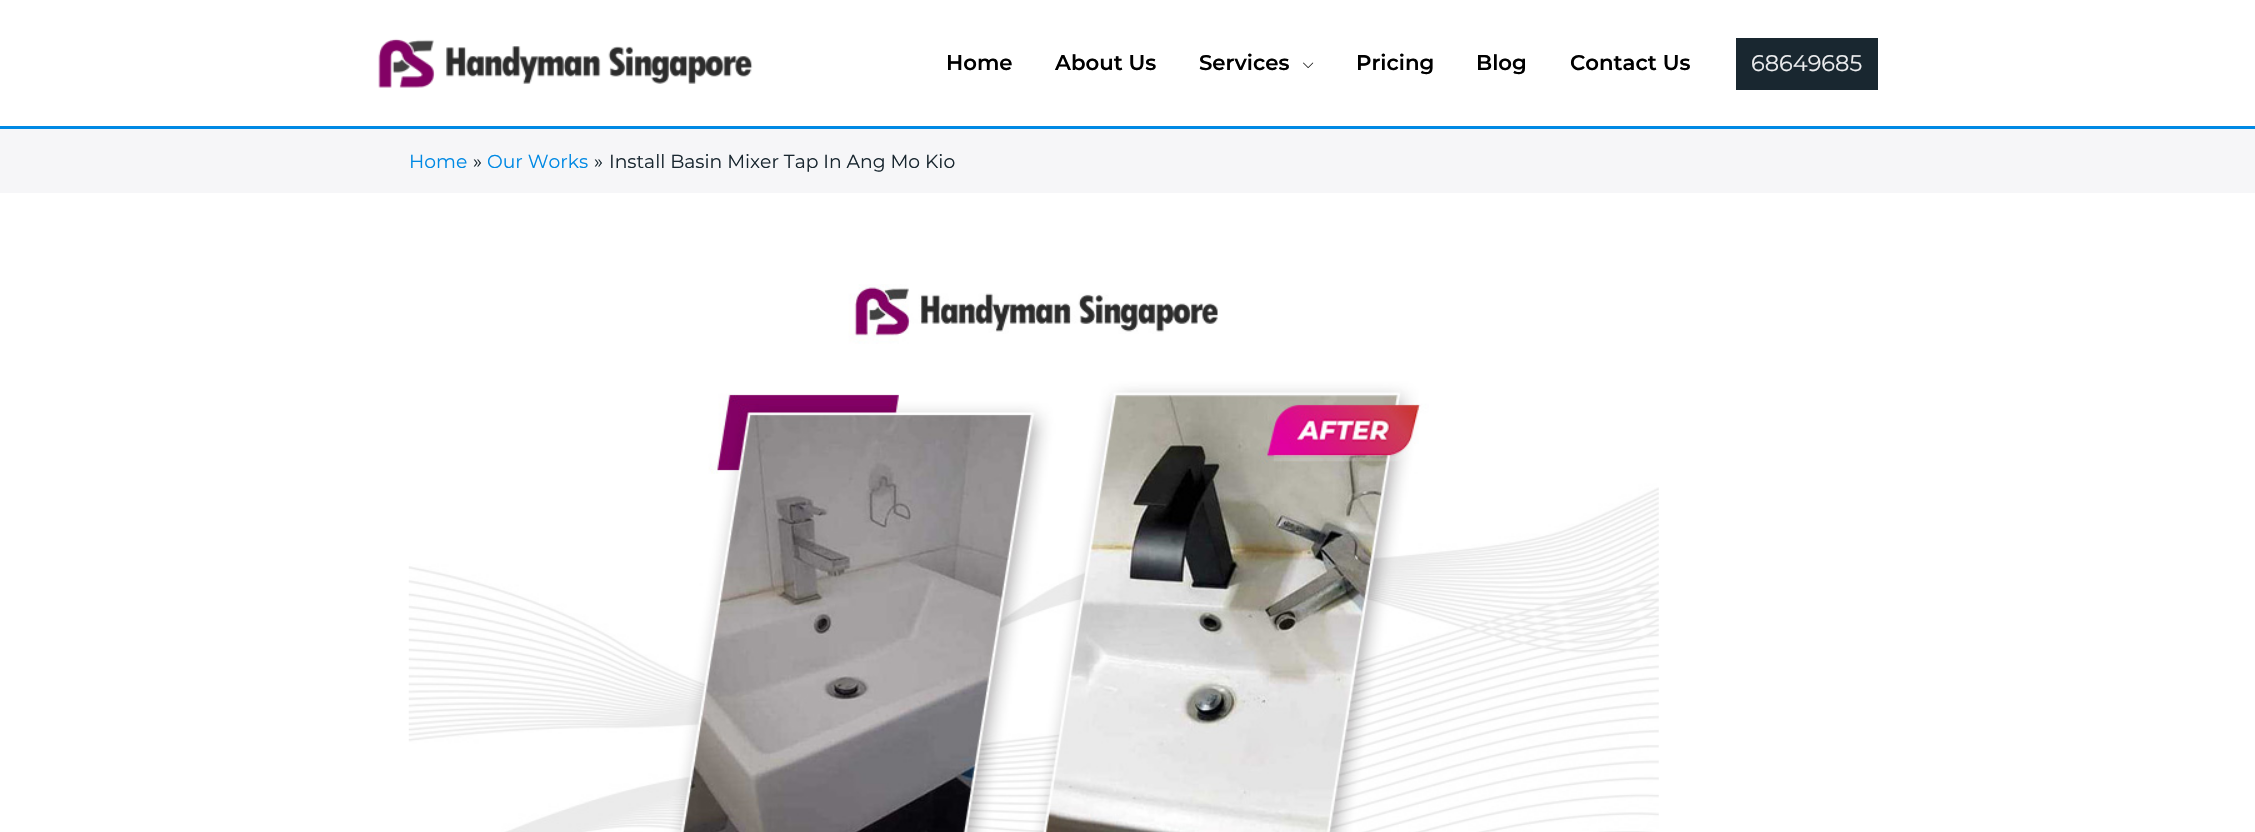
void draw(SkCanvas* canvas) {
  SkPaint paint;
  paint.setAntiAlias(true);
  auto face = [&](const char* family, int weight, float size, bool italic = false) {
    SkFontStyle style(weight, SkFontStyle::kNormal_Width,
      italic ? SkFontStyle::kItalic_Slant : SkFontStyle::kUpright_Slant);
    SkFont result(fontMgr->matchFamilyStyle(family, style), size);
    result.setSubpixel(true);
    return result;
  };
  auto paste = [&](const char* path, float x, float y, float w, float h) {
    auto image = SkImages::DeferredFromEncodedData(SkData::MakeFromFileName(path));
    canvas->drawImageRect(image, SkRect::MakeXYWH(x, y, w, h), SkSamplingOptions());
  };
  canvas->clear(0xffffffff);
  paint.setColor(0xff0089e4);
  canvas->drawRect(SkRect::MakeXYWH(0, 126, 2255, 3), paint);
  paste("img/1.png", 378, 38, 375, 50);
  paste("img/2.png", 1303, 62, 11, 6);
  paint.setColor(0xff192730);
  canvas->drawRect(SkRect::MakeXYWH(1736, 38, 142, 52), paint);
  paint.setColor(0xfff6f6f8);
  canvas->drawRect(SkRect::MakeXYWH(0, 129, 2255, 64), paint);
  paste("img/3.png", 408, 284, 1251, 548);
  auto f0 = face("Montserrat", 600, 21.25f);
  paint.setColor(0xff000000);
  {
    const struct { const char* s; float x, y; } items[] = {
      {"Home", 946, 70},
      {"About Us", 1055, 70},
      {"Services", 1199, 70},
      {"Pricing", 1356, 70},
      {"Blog", 1476, 70},
      {"Contact Us", 1570, 70},
    };
    for (auto [s, x, y] : items) {
      canvas->drawString(s, x, y, f0, paint);
    }
  }
  auto f1 = face("Montserrat", 400, 22.5f);
  paint.setColor(0xffecedef);
  canvas->drawString("68649685", 1751, 71, f1, paint);
  auto f2 = face("Montserrat", 400, 18.75f);
  paint.setColor(0xff0089e4);
  canvas->drawString("Home", 409, 168, f2, paint);
  paint.setColor(0xff192730);
  canvas->drawString("»", 473, 168, f2, paint);
  paint.setColor(0xff0089e4);
  canvas->drawString("Our Works", 487, 168, f2, paint);
  paint.setColor(0xff192730);
  canvas->drawString("»", 594, 168, f2, paint);
  canvas->drawString("Install Basin Mixer Tap In Ang Mo Kio", 609, 168, f2, paint);
}
